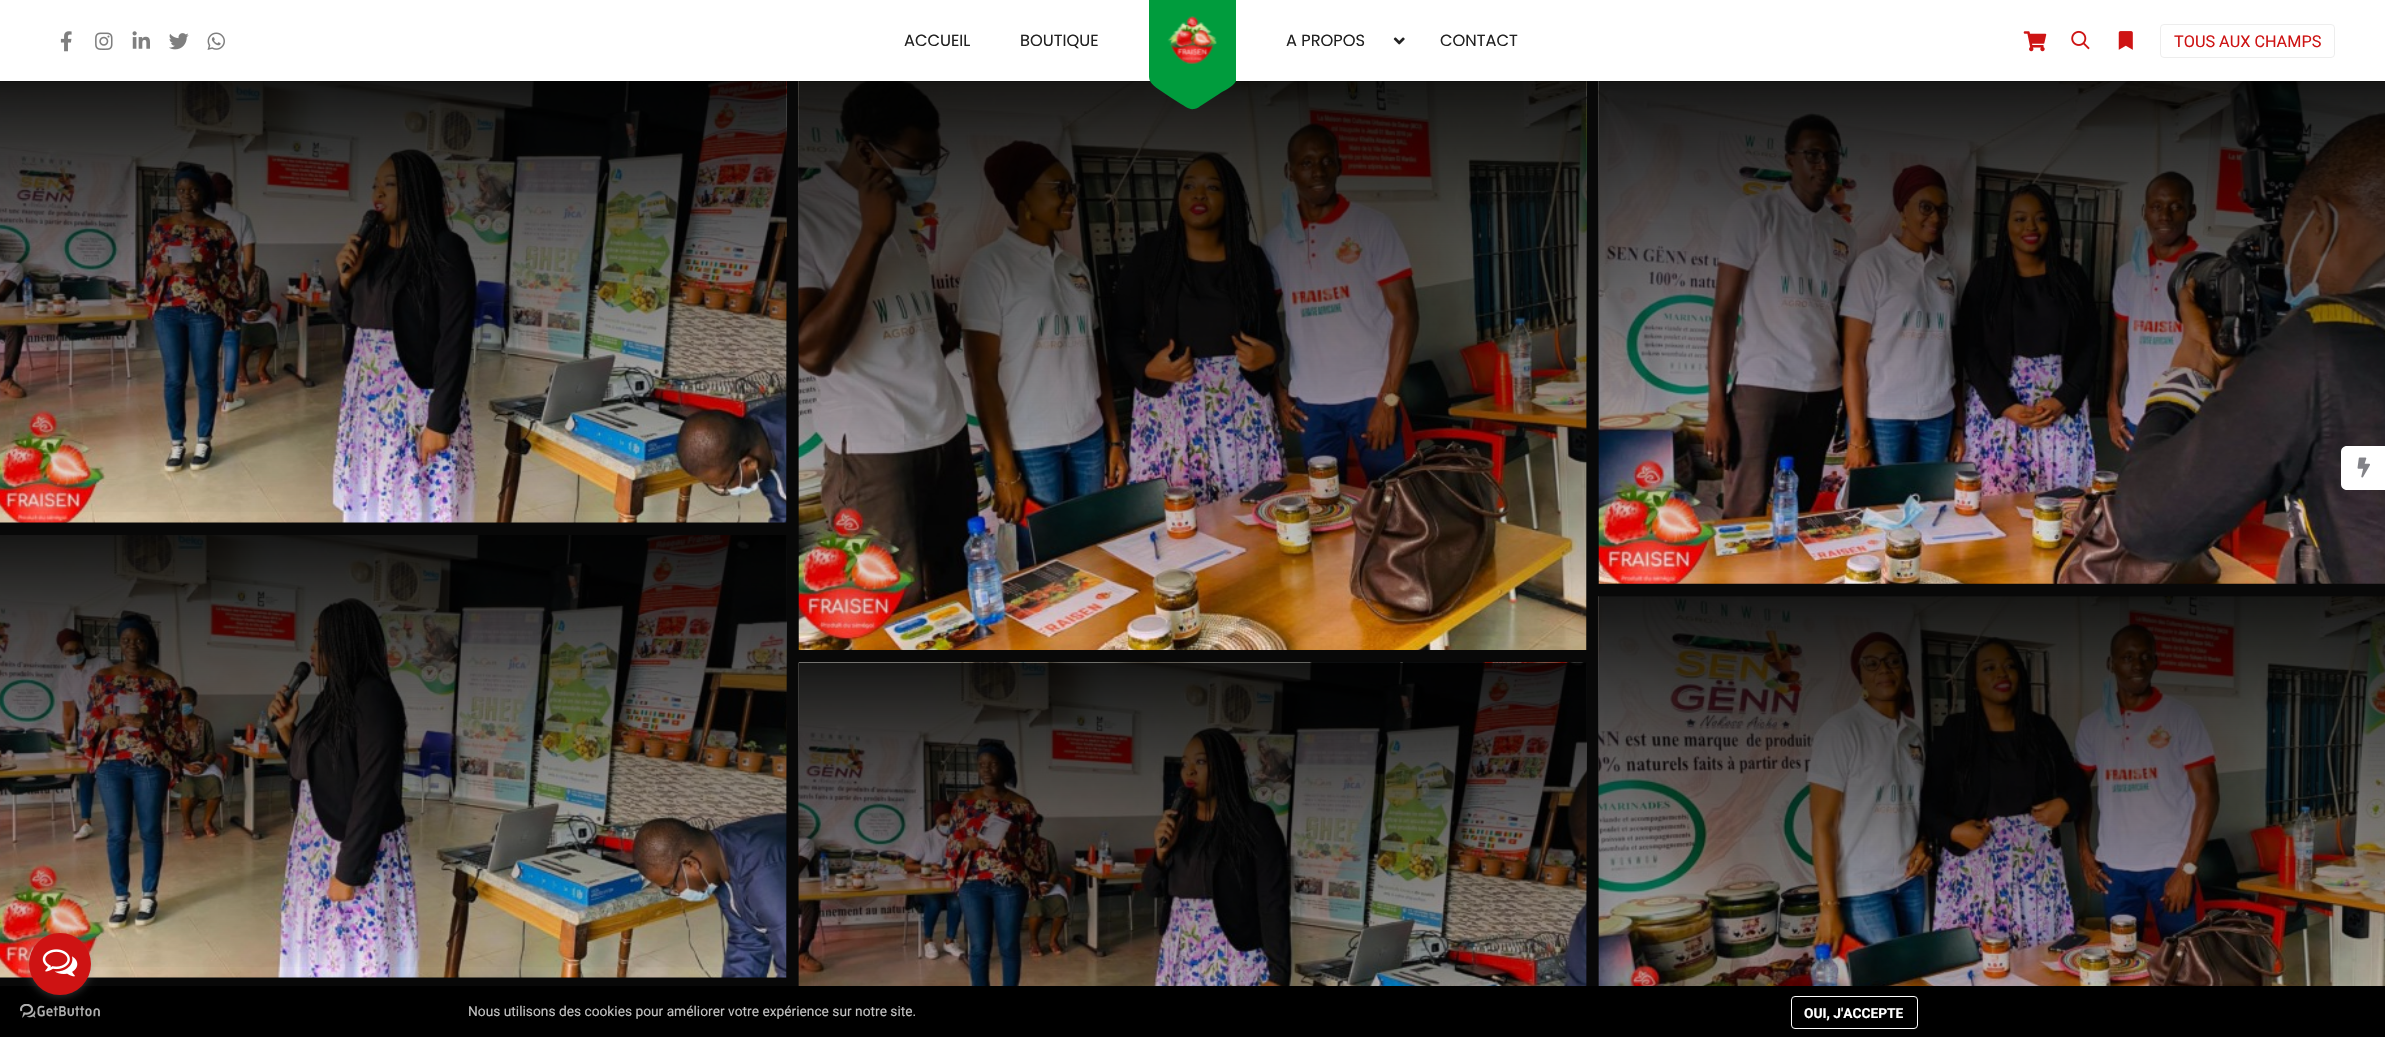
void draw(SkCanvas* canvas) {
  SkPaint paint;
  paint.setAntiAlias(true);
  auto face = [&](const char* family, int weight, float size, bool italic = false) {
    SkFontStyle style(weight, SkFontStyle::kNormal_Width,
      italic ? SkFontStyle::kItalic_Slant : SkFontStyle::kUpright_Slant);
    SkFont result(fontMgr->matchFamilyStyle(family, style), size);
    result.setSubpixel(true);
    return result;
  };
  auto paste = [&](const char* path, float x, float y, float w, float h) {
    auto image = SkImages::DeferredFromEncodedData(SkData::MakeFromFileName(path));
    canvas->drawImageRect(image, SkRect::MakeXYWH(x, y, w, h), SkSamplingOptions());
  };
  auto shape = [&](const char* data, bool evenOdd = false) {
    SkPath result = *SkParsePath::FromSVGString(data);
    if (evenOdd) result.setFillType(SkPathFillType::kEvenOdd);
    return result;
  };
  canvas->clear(0xff080808);
  paint.setColor(0xff000000);
  canvas->drawRect(SkRect::MakeXYWH(0, 986, 2385, 51), paint);
  paste("img/2.png", 20, 1004, 80, 14);
  paste("img/16.png", 0, 535, 787, 443);
  {
    const SkColor colors[] = {0x00000000, 0xe6000000};
    const float stops[] = {0, 1};
    const SkPoint ends[] = {{393, 978}, {393, 535}};
    paint.setShader(SkGradientShader::MakeLinear(ends, colors, stops, 2, SkTileMode::kClamp));
    paint.setAlpha(255);
  }
  canvas->drawRect(SkRect::MakeXYWH(0, 535, 786, 432), paint);
  paint.setShader(nullptr);
  paint.setColor(0x66888888);
  paint.setMaskFilter(SkMaskFilter::MakeBlur(kNormal_SkBlurStyle, 4.5f));
  canvas->drawRoundRect(SkRect::MakeXYWH(29, 934, 62, 62), 31, 31, paint);
  paint.setMaskFilter(nullptr);
  paint.setColor(0xffce1313);
  canvas->drawCircle(60, 964, 31, paint);
  paste("img/1.png", 42, 949, 36, 28);
  paint.setColor(0xffffffff);
  canvas->drawRect(SkRect::MakeXYWH(0, 0, 2385, 81), paint);
  paste("img/3.png", 60, 31, 12, 21);
  paste("img/4.png", 95, 32, 18, 18);
  paste("img/5.png", 132, 31, 18, 18);
  paste("img/6.png", 169, 33, 20, 17);
  paste("img/7.png", 207, 32, 18, 18);
  paste("img/14.png", 798, 81, 789, 569);
  {
    const SkColor colors[] = {0x00000000, 0xe6000000};
    const float stops[] = {0, 1};
    const SkPoint ends[] = {{1193, 650}, {1193, 81}};
    paint.setShader(SkGradientShader::MakeLinear(ends, colors, stops, 2, SkTileMode::kClamp));
    paint.setAlpha(255);
  }
  canvas->drawRect(SkRect::MakeXYWH(799, 81, 787, 555), paint);
  canvas->save();
  canvas->clipRect(SkRect::MakeXYWH(1149, 0, 87, 110));
  paint.setShader(nullptr);
  paint.setColor(0xff009c3d);
  canvas->drawPath(shape("M1149 39V62C1149 66 1148 77 1150 81C1153 87 1165 93 1170 97L1181 104C1185 106 1189 110 1194 109C1197 109 1200 106 1202 105L1219 94C1223 91 1233 87 1236 81C1237 77 1236 66 1236 62V0H1149Z"), paint);
  canvas->restore();
  paste("img/8.png", 1167, 16, 50, 48);
  paste("img/9.png", 1393, 37, 12, 8);
  paste("img/10.png", 2023, 31, 24, 21);
  paste("img/11.png", 2071, 30, 19, 20);
  paste("img/12.png", 2118, 31, 15, 19);
  paint.setStroke(true);
  paint.setStrokeWidth(1);
  paint.setColor(0xffededed);
  canvas->drawRoundRect(SkRect::MakeXYWH(2160.5f, 24.5f, 174, 33), 3.5f, 3.5f, paint);
  paste("img/13.png", 0, 81, 787, 442);
  paint.setStroke(false);
  {
    const SkColor colors[] = {0x00000000, 0xe6000000};
    const float stops[] = {0, 1};
    const SkPoint ends[] = {{393, 523}, {393, 81}};
    paint.setShader(SkGradientShader::MakeLinear(ends, colors, stops, 2, SkTileMode::kClamp));
    paint.setAlpha(255);
  }
  canvas->drawRect(SkRect::MakeXYWH(0, 81, 786, 431), paint);
  paste("img/15.png", 1598, 81, 787, 503);
  {
    const SkColor colors[] = {0x00000000, 0xe6000000};
    const float stops[] = {0, 1};
    const SkPoint ends[] = {{1992, 584}, {1992, 81}};
    paint.setShader(SkGradientShader::MakeLinear(ends, colors, stops, 2, SkTileMode::kClamp));
    paint.setAlpha(255);
  }
  canvas->drawRect(SkRect::MakeXYWH(1599, 81, 786, 491), paint);
  paste("img/17.png", 798, 662, 789, 324);
  paste("img/18.png", 1598, 596, 787, 390);
  {
    const SkColor colors[] = {0x00000000, 0xe6000000};
    const float stops[] = {0, 1};
    const SkPoint ends[] = {{1992, 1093}, {1992, 596}};
    paint.setShader(SkGradientShader::MakeLinear(ends, colors, stops, 2, SkTileMode::kClamp));
    paint.setAlpha(255);
  }
  canvas->drawRect(SkRect::MakeXYWH(1599, 596, 786, 390), paint);
  paint.setShader(nullptr);
  paint.setColor(0xffffffff);
  canvas->drawPath(shape("M2347 446H2385V490H2347C2343.5 490 2341 487.5 2341 484V452C2341 448.5 2343.5 446 2347 446Z"), paint);
  paste("img/19.png", 2357, 457, 13, 21);
  paint.setStroke(true);
  canvas->drawRoundRect(SkRect::MakeXYWH(1791.5f, 996.5f, 126, 32), 3.5f, 3.5f, paint);
  auto f0 = face("Poppins", 400, 16.25f);
  paint.setStroke(false);
  paint.setColor(0xff222222);
  {
    const struct { const char* s; float x, y; } items[] = {
      {"ACCUEIL", 904, 46},
      {"BOUTIQUE", 1020, 46},
      {"A PROPOS", 1286, 46},
      {"CONTACT", 1440, 46},
    };
    for (auto [s, x, y] : items) {
      canvas->drawString(s, x, y, f0, paint);
    }
  }
  auto f1 = face("Roboto", 400, 16.25f);
  paint.setColor(0xffce1414);
  canvas->drawString("TOUS AUX CHAMPS", 2174, 47, f1, paint);
  auto f2 = face("Roboto", 400, 13.75f);
  paint.setColor(0xffc1c1c1);
  canvas->drawString("Nous utilisons des cookies pour améliorer votre expérience sur notre site.", 468, 1016, f2, paint);
  auto f3 = face("Roboto", 700, 13.75f);
  paint.setColor(0xffffffff);
  canvas->drawString("OUI, J'ACCEPTE", 1804, 1018, f3, paint);
}
